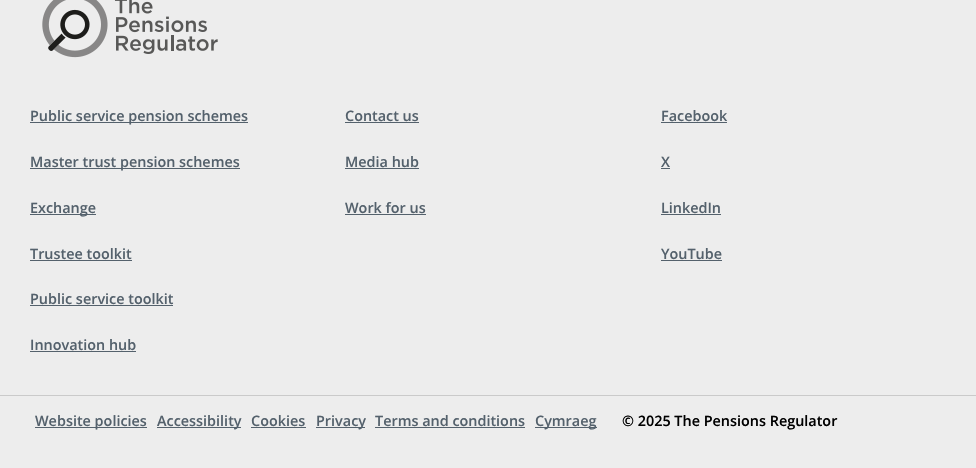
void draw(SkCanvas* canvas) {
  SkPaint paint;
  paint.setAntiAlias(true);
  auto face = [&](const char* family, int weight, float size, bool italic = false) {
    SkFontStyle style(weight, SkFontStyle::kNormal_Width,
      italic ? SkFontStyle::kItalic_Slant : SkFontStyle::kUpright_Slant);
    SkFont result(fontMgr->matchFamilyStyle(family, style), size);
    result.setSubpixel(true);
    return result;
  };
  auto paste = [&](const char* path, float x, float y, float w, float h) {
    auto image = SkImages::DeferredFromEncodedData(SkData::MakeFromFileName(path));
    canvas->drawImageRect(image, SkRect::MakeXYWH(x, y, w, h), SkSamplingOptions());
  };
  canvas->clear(0xffededed);
  paste("img/1.png", 42, 0, 176, 58);
  {
    const struct { float x, y, w, h; SkColor color; } items[] = {
      {30, 122, 218, 1, 0xff54616c},
      {30, 168, 210, 1, 0xff54616c},
      {30, 214, 66, 1, 0xff54616c},
      {30, 260, 102, 1, 0xff54616c},
      {30, 305, 143, 1, 0xff54616c},
      {30, 351, 106, 1, 0xff54616c},
      {345, 122, 74, 1, 0xff54616c},
      {345, 168, 74, 1, 0xff54616c},
      {345, 214, 81, 1, 0xff54616c},
      {661, 122, 66, 1, 0xff54616c},
      {661, 168, 9, 1, 0xff54616c},
      {661, 214, 60, 1, 0xff54616c},
      {661, 260, 61, 1, 0xff54616c},
      {0, 395, 976, 1, 0xffcacaca},
      {35, 427, 112, 1, 0xff54616c},
      {157, 427, 84, 1, 0xff54616c},
      {251, 427, 55, 1, 0xff54616c},
      {316, 427, 49, 1, 0xff54616c},
      {375, 427, 150, 1, 0xff54616c},
      {535, 427, 62, 1, 0xff54616c},
    };
    for (auto [x, y, w, h, color] : items) {
      paint.setColor(color);
      canvas->drawRect(SkRect::MakeXYWH(x, y, w, h), paint);
    }
  }
  auto f0 = face("Open Sans", 600, 14.4f);
  {
    const struct { const char* s; float x, y; } items[] = {
      {"Public service pension schemes", 30, 121},
      {"Master trust pension schemes", 30, 167},
      {"Exchange", 30, 213},
      {"Trustee toolkit", 30, 259},
      {"Public service toolkit", 30, 304},
      {"Innovation hub", 30, 350},
      {"Contact us", 345, 121},
      {"Media hub", 345, 167},
      {"Work for us", 345, 213},
      {"Facebook", 661, 121},
      {"X", 661, 167},
      {"LinkedIn", 661, 213},
      {"YouTube", 661, 259},
      {"Website policies", 35, 426},
      {"Accessibility", 157, 426},
      {"Cookies", 251, 426},
      {"Privacy", 316, 426},
      {"Terms and conditions", 375, 426},
      {"Cymraeg", 535, 426},
    };
    for (auto [s, x, y] : items) {
      canvas->drawString(s, x, y, f0, paint);
    }
  }
  paint.setColor(0xff000000);
  canvas->drawString("© 2025 The Pensions Regulator", 622, 426, f0, paint);
}
